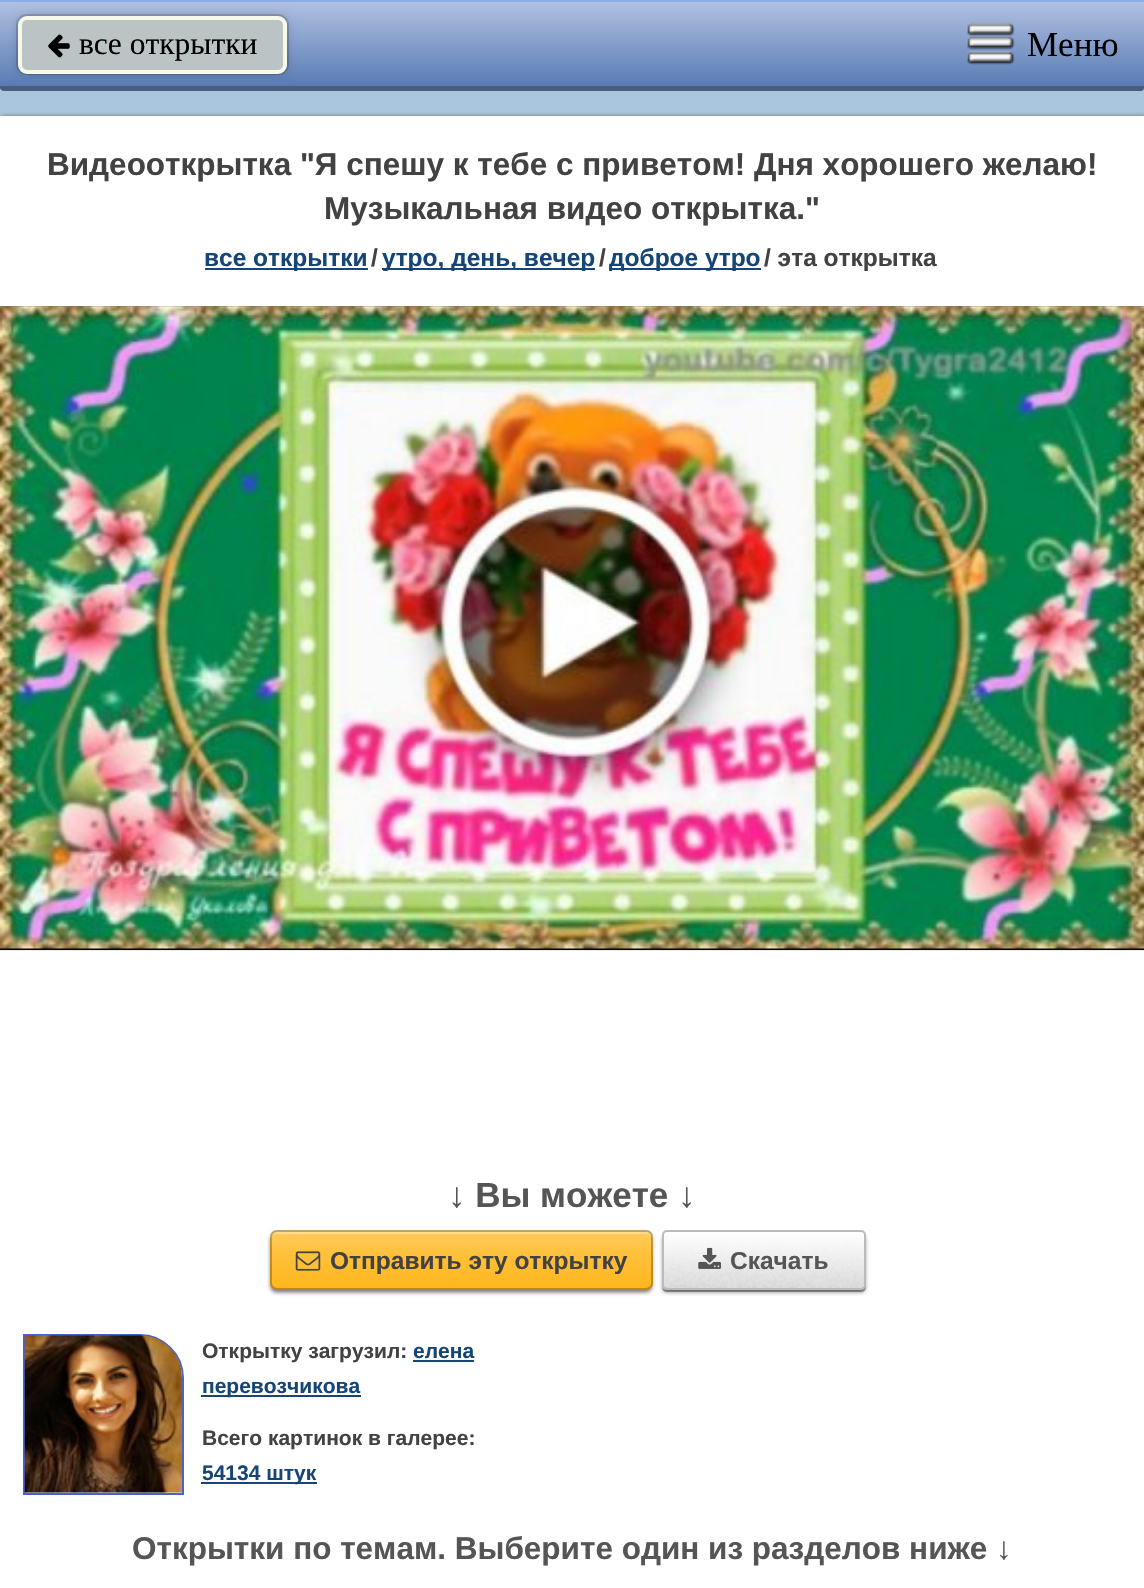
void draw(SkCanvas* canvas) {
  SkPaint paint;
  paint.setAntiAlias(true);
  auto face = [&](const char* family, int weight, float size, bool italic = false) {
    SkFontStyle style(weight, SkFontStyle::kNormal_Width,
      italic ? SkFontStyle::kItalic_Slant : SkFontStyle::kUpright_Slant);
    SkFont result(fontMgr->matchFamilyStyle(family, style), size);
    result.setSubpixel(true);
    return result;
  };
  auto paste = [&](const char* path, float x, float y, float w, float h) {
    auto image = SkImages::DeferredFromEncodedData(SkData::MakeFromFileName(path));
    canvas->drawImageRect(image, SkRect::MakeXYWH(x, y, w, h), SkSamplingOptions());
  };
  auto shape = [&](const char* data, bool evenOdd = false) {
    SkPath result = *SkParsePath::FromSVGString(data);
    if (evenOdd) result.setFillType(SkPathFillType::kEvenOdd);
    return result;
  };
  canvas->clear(0xffffffff);
  {
    const SkColor colors[] = {0xffaac6de, 0xffb0c0e1, 0xff597cb4};
    const float stops[] = {0, 0.48f, 1};
    const SkPoint ends[] = {{572, 0}, {572, 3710}};
    paint.setShader(SkGradientShader::MakeLinear(ends, colors, stops, 3, SkTileMode::kClamp));
    paint.setAlpha(255);
  }
  canvas->drawRect(SkRect::MakeXYWH(0, 88, 1144, 28), paint);
  {
    const SkColor colors[] = {0xffb0c0e1, 0xff597cb4};
    const float stops[] = {0, 1};
    const SkPoint ends[] = {{572, 1.7f}, {572, 86}};
    paint.setShader(SkGradientShader::MakeLinear(ends, colors, stops, 2, SkTileMode::kClamp));
    paint.setAlpha(255);
  }
  canvas->drawRect(SkRect::MakeXYWH(0, 2, 1144, 84), paint);
  {
    const SkColor colors[] = {0xffb0c0e1, 0xff597cb4};
    const float stops[] = {0, 1};
    const SkPoint ends[] = {{572, 86}, {572, 170}};
    paint.setShader(SkGradientShader::MakeLinear(ends, colors, stops, 2, SkTileMode::kClamp));
    paint.setAlpha(255);
  }
  canvas->drawPath(shape("M0 86H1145V87C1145 89 1143 91 1141 91H4C2 91 0 89 0 87Z"), paint);
  paint.setShader(nullptr);
  paint.setColor(0xff8aade8);
  canvas->drawRect(SkRect::MakeXYWH(0, 0, 1144, 2), paint);
  paint.setColor(0xff495d7f);
  canvas->drawPath(shape("M1144 88V86H0V88C0 89 2 91 4 91H1141C1143 91 1144 89 1144 88Z"), paint);
  paint.setColor(0x33000000);
  paint.setMaskFilter(SkMaskFilter::MakeBlur(kNormal_SkBlurStyle, 5));
  canvas->drawRoundRect(SkRect::MakeXYWH(18, 16, 269, 58), 9, 9, paint);
  paint.setMaskFilter(nullptr);
  paint.setStroke(true);
  paint.setStrokeWidth(2);
  paint.setColor(0x26000000);
  canvas->drawRoundRect(SkRect::MakeXYWH(17, 15, 271, 59), 10, 10, paint);
  paint.setStroke(false);
  paint.setColor(0xffbbc3c5);
  canvas->drawRoundRect(SkRect::MakeXYWH(20, 18, 265, 54), 7, 7, paint);
  paint.setStroke(true);
  paint.setStrokeWidth(4);
  paint.setColor(0xfff6f8e8);
  canvas->drawRoundRect(SkRect::MakeXYWH(20, 18, 265, 54), 7, 7, paint);
  paste("img/1.png", 48, 34, 22, 24);
  paste("img/2.png", 966, 22, 49, 43);
  paint.setStroke(false);
  paint.setColor(0xff424242);
  paint.setMaskFilter(SkMaskFilter::MakeBlur(kNormal_SkBlurStyle, 2.5f));
  canvas->drawRect(SkRect::MakeXYWH(2, 117, 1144, 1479), paint);
  paint.setMaskFilter(nullptr);
  {
    const struct { float x, y, w, h; SkColor color; } items[] = {
      {0, 116, 1144, 1472, 0xffffffff},
      {205, 268, 163, 2, 0xff154677},
      {382, 268, 213, 2, 0xff154677},
      {609, 268, 152, 2, 0xff154677},
    };
    for (auto [x, y, w, h, color] : items) {
      paint.setColor(color);
      canvas->drawRect(SkRect::MakeXYWH(x, y, w, h), paint);
    }
  }
  paste("img/3.png", 0, 306, 1144, 645);
  paste("img/4.png", 0, 306, 1144, 643);
  paint.setColor(0x80000000);
  paint.setMaskFilter(SkMaskFilter::MakeBlur(kNormal_SkBlurStyle, 2));
  canvas->drawRoundRect(SkRect::MakeXYWH(271, 1236, 380, 56), 5, 5, paint);
  paint.setMaskFilter(nullptr);
  paint.setColor(0x26000000);
  paint.setMaskFilter(SkMaskFilter::MakeBlur(kNormal_SkBlurStyle, 2));
  canvas->drawRoundRect(SkRect::MakeXYWH(270, 1232, 383, 60), 7, 7, paint);
  paint.setMaskFilter(nullptr);
  paint.setColor(0xffffb619);
  canvas->drawRoundRect(SkRect::MakeXYWH(270, 1230, 383, 60), 7, 7, paint);
  {
    const SkColor colors[] = {0x4dffffff, 0x26ffffff, 0x00ffffff};
    const float stops[] = {0, 0.4f, 1};
    const SkPoint ends[] = {{461, 1230}, {461, 1290}};
    paint.setShader(SkGradientShader::MakeLinear(ends, colors, stops, 3, SkTileMode::kClamp));
    paint.setAlpha(255);
  }
  canvas->drawRoundRect(SkRect::MakeXYWH(270, 1230, 383, 60), 7, 7, paint);
  paint.setShader(nullptr);
  paint.setColor(0x4dffffff);
  canvas->drawPath(shape("M276 1234H646C650 1234 653 1237 653 1241V1237C653 1233 650 1230 646 1230H277C273 1230 270 1233 270 1237V1241C270 1237 273 1234 276 1234Z"), paint);
  paint.setStroke(true);
  paint.setStrokeWidth(2);
  paint.setColor(0x40000000);
  canvas->drawRoundRect(SkRect::MakeXYWH(271, 1231, 381, 58), 6, 6, paint);
  paste("img/5.png", 295, 1251, 26, 20);
  paint.setStroke(false);
  paint.setColor(0x80000000);
  paint.setMaskFilter(SkMaskFilter::MakeBlur(kNormal_SkBlurStyle, 2));
  canvas->drawRoundRect(SkRect::MakeXYWH(663, 1236, 202, 56), 4, 4, paint);
  paint.setMaskFilter(nullptr);
  paint.setColor(0x4d000000);
  canvas->drawPath(shape("M662 1287C662 1290 664 1292 667 1292H861C864 1292 866 1290 866 1287V1286C865 1288 863 1290 861 1290H667C665 1290 663 1289 662 1287Z"), paint);
  paint.setColor(0xffdddddd);
  canvas->drawRoundRect(SkRect::MakeXYWH(663, 1232, 202, 56), 4, 4, paint);
  paste("img/6.png", 664, 1232, 200, 56);
  paint.setColor(0x4dffffff);
  canvas->drawPath(shape("M667 1234H861C863 1234 864 1235 864 1237V1287C865 1286 865 1285 865 1284V1236C865 1234 863 1232 861 1232H667C665 1232 663 1234 663 1236V1237C663 1235 665 1234 667 1234Z"), paint);
  paint.setStroke(true);
  paint.setColor(0xffbbbbbb);
  canvas->drawRoundRect(SkRect::MakeXYWH(663, 1231, 202, 58), 4, 4, paint);
  paste("img/7.png", 698, 1247, 23, 22);
  paint.setColor(0xff4863cf);
  canvas->drawPath(shape("M24 1335H140C163.5 1335 183 1354.5 183 1378V1494H24Z"), paint);
  paste("img/8.png", 24, 1335, 158, 158);
  paint.setStroke(false);
  {
    const struct { float x, y, w, h; SkColor color; } items[] = {
      {413, 1360, 61, 2, 0xff154677},
      {201, 1395, 160, 2, 0xff154677},
      {201, 1482, 116, 2, 0xff154677},
    };
    for (auto [x, y, w, h, color] : items) {
      paint.setColor(color);
      canvas->drawRect(SkRect::MakeXYWH(x, y, w, h), paint);
    }
  }
  auto f0 = face("Liberation Serif", 400, 31.5f);
  paint.setColor(0xff000000);
  canvas->drawString("все открытки", 79, 54, f0, paint);
  auto f1 = face("Liberation Serif", 400, 35);
  canvas->drawString("Меню", 1027, 56, f1, paint);
  auto f2 = face("Liberation Sans", 700, 31.5f);
  paint.setColor(0xff424242);
  canvas->drawString("Видеооткрытка \"Я спешу к тебе с приветом! Дня хорошего желаю!", 47, 175, f2, paint);
  canvas->drawString("Музыкальная видео открытка.\"", 324, 219, f2, paint);
  auto f3 = face("Liberation Sans", 700, 24.5f);
  paint.setColor(0xff154677);
  canvas->drawString("все открытки", 204, 266, f3, paint);
  paint.setColor(0xff424242);
  canvas->drawString("/", 371, 266, f3, paint);
  paint.setColor(0xff154677);
  canvas->drawString("утро, день, вечер", 382, 266, f3, paint);
  paint.setColor(0xff424242);
  canvas->drawString("/", 599, 266, f3, paint);
  paint.setColor(0xff154677);
  canvas->drawString("доброе утро", 609, 266, f3, paint);
  paint.setColor(0xff424242);
  canvas->drawString("/ эта открытка", 764, 266, f3, paint);
  auto f4 = face("Liberation Sans", 700, 35);
  paint.setColor(0xff555555);
  canvas->drawString("↓ Вы можете ↓", 448, 1207, f4, paint);
  paint.setColor(0xff424242);
  canvas->drawString("Отправить эту открытку", 330, 1269, f3, paint);
  paint.setColor(0xff555555);
  canvas->drawString("Скачать", 730, 1269, f3, paint);
  auto f5 = face("Liberation Sans", 700, 21);
  paint.setColor(0xff424242);
  canvas->drawString("Открытку загрузил:", 202, 1358, f5, paint);
  paint.setColor(0xff154677);
  canvas->drawString("елена", 413, 1358, f5, paint);
  canvas->drawString("перевозчикова", 202, 1393, f5, paint);
  paint.setColor(0xff424242);
  canvas->drawString("Всего картинок в галерее:", 202, 1445, f5, paint);
  paint.setColor(0xff154677);
  canvas->drawString("54134 штук", 202, 1480, f5, paint);
  paint.setColor(0xff555555);
  canvas->drawString("Открытки по темам. Выберите один из разделов ниже ↓", 132, 1559, f2, paint);
}
